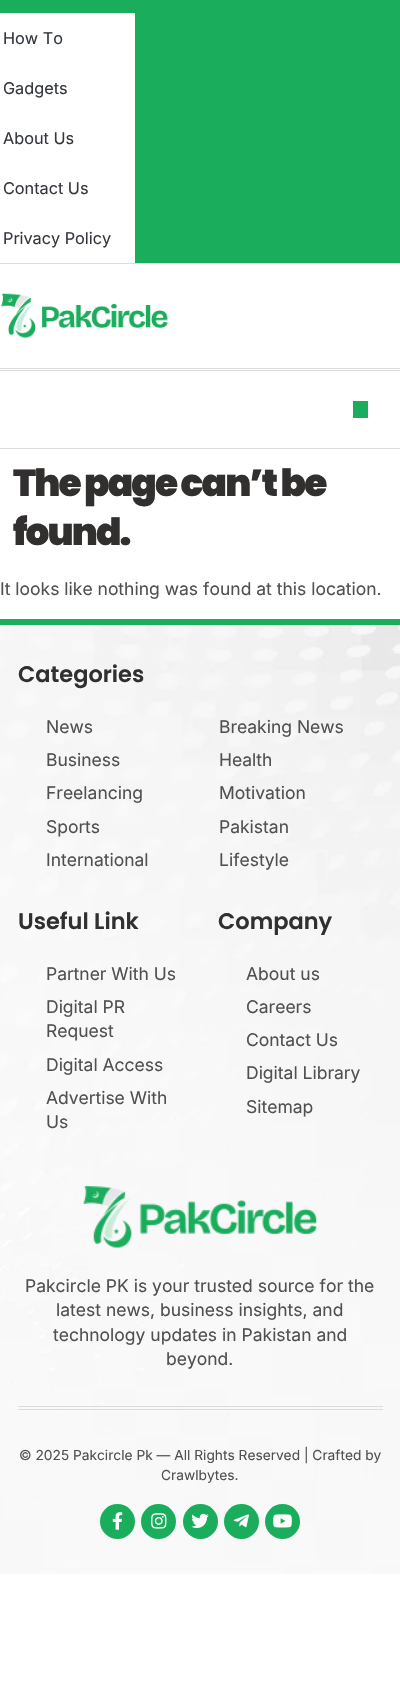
void draw(SkCanvas* canvas) {
  SkPaint paint;
  paint.setAntiAlias(true);
  auto face = [&](const char* family, int weight, float size, bool italic = false) {
    SkFontStyle style(weight, SkFontStyle::kNormal_Width,
      italic ? SkFontStyle::kItalic_Slant : SkFontStyle::kUpright_Slant);
    SkFont result(fontMgr->matchFamilyStyle(family, style), size);
    result.setSubpixel(true);
    return result;
  };
  auto writeSpaced = [&](const char* s, float x, float y, const SkFont& font, const SkPaint& ink, float letter, float word) {
    std::vector<SkGlyphID> glyphs(font.countText(s, strlen(s), SkTextEncoding::kUTF8));
    std::vector<float> xs(glyphs.size());
    font.textToGlyphs(s, strlen(s), SkTextEncoding::kUTF8, glyphs);
    font.getXPos(glyphs, xs, x);
    float extra = 0;
    for (size_t i = 0; i < glyphs.size(); i++) {
      xs[i] += extra;
      extra += letter + word * (glyphs[i] == font.unicharToGlyph(' '));
    }
    canvas->drawTextBlob(SkTextBlob::MakeFromPosHGlyphs(glyphs, xs, y, font), 0, 0, ink);
  };
  auto paste = [&](const char* path, float x, float y, float w, float h) {
    auto image = SkImages::DeferredFromEncodedData(SkData::MakeFromFileName(path));
    canvas->drawImageRect(image, SkRect::MakeXYWH(x, y, w, h), SkSamplingOptions());
  };
  canvas->clear(0xffffffff);
  {
    const struct { float x, y, w, h; SkColor color; } items[] = {
      {0, 0, 400, 263, 0xff1aad5c},
      {0, 263, 400, 1, 0xffdcdcde},
      {0, 13, 135, 250, 0xffffffff},
      {0, 368, 400, 1, 0xffdcdcde},
      {0, 370, 400, 1, 0xffdcdcde},
    };
    for (auto [x, y, w, h, color] : items) {
      paint.setColor(color);
      canvas->drawRect(SkRect::MakeXYWH(x, y, w, h), paint);
    }
  }
  paste("img/1.png", 1, 293, 167, 45);
  canvas->drawRect(SkRect::MakeXYWH(0, 448, 400, 1), paint);
  paint.setColor(0xff1aad5c);
  canvas->drawRect(SkRect::MakeXYWH(353, 401, 15, 17), paint);
  paste("img/2.png", 0, 625, 400, 949);
  canvas->drawRect(SkRect::MakeXYWH(0, 619, 400, 6), paint);
  paste("img/3.png", 83, 1186, 234, 62);
  paint.setColor(0xffdcdcde);
  canvas->drawRect(SkRect::MakeXYWH(18, 1406, 365, 1), paint);
  canvas->drawRect(SkRect::MakeXYWH(18, 1409, 365, 1), paint);
  paint.setColor(0xff1aad5c);
  canvas->drawCircle(117.5f, 1521.5f, 17.5f, paint);
  paste("img/4.png", 112, 1512, 11, 18);
  canvas->drawCircle(158.5f, 1521.5f, 17.5f, paint);
  paste("img/5.png", 151, 1513, 16, 16);
  canvas->drawCircle(200.5f, 1521.5f, 17.5f, paint);
  paste("img/6.png", 191, 1513, 18, 16);
  canvas->drawCircle(241.5f, 1521.5f, 17.5f, paint);
  paste("img/7.png", 233, 1514, 16, 14);
  canvas->drawCircle(282.5f, 1521.5f, 17.5f, paint);
  paste("img/8.png", 273, 1514, 19, 14);
  auto f0 = face("Inter", 400, 16.25f);
  paint.setColor(0xff33373d);
  {
    const struct { const char* s; float x, y; } items[] = {
      {"How To", 3, 44},
      {"Gadgets", 3, 94},
      {"About Us", 3, 144},
      {"Contact Us", 3, 194},
      {"Privacy Policy", 3, 244},
    };
    for (auto [s, x, y] : items) {
      canvas->drawString(s, x, y, f0, paint);
    }
  }
  auto f1 = face("Poppins", 900, 37.5f);
  paint.setColor(0xff322f2f);
  writeSpaced("The page can’t be", 13, 496, f1, paint, -1.9f, 0);
  writeSpaced("found.", 13, 545, f1, paint, -1.9f, 0);
  auto f2 = face("Inter", 400, 17.5f);
  paint.setColor(0xff505050);
  canvas->drawString("It looks like nothing was found at this location.", 0, 595, f2, paint);
  auto f3 = face("Poppins", 600, 22.5f);
  paint.setColor(0xff322f2f);
  canvas->drawString("Categories", 18, 682, f3, paint);
  paint.setColor(0xff505050);
  {
    const struct { const char* s; float x, y; } items[] = {
      {"News", 46, 733},
      {"Business", 46, 766},
      {"Freelancing", 46, 799},
      {"Sports", 46, 833},
      {"International", 46, 866},
      {"Breaking News", 219, 733},
      {"Health", 219, 766},
      {"Motivation", 219, 799},
      {"Pakistan", 219, 833},
      {"Lifestyle", 219, 866},
    };
    for (auto [s, x, y] : items) {
      canvas->drawString(s, x, y, f2, paint);
    }
  }
  paint.setColor(0xff322f2f);
  canvas->drawString("Useful Link", 18, 929, f3, paint);
  paint.setColor(0xff505050);
  {
    const struct { const char* s; float x, y; } items[] = {
      {"Partner With Us", 46, 980},
      {"Digital PR", 46, 1013},
      {"Request", 46, 1037},
      {"Digital Access", 46, 1071},
      {"Advertise With", 46, 1104},
      {"Us", 46, 1128},
    };
    for (auto [s, x, y] : items) {
      canvas->drawString(s, x, y, f2, paint);
    }
  }
  paint.setColor(0xff322f2f);
  canvas->drawString("Company", 218, 929, f3, paint);
  paint.setColor(0xff505050);
  {
    const struct { const char* s; float x, y; } items[] = {
      {"About us", 246, 980},
      {"Careers", 246, 1013},
      {"Contact Us", 246, 1046},
      {"Digital Library", 246, 1079},
      {"Sitemap", 246, 1113},
      {"Pakcircle PK is your trusted source for the", 25, 1292},
      {"latest news, business insights, and", 56, 1316},
      {"technology updates in Pakistan and", 53, 1341},
      {"beyond.", 166, 1365},
    };
    for (auto [s, x, y] : items) {
      canvas->drawString(s, x, y, f2, paint);
    }
  }
  auto f4 = face("Inter", 400, 13.75f);
  canvas->drawString("© 2025 Pakcircle Pk — All Rights Reserved | Crafted by", 19, 1460, f4, paint);
  canvas->drawString("Crawlbytes.", 161, 1480, f4, paint);
}
